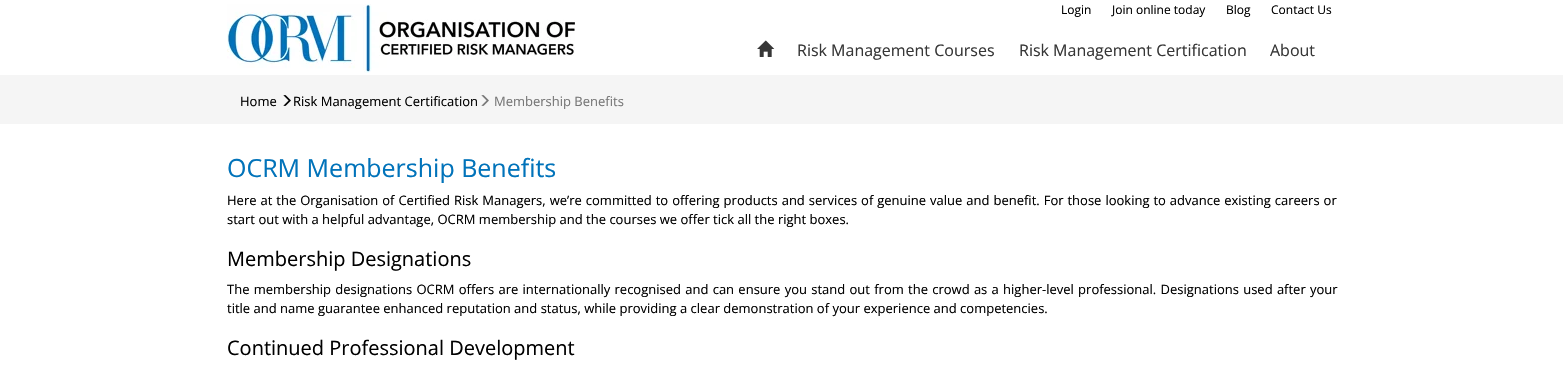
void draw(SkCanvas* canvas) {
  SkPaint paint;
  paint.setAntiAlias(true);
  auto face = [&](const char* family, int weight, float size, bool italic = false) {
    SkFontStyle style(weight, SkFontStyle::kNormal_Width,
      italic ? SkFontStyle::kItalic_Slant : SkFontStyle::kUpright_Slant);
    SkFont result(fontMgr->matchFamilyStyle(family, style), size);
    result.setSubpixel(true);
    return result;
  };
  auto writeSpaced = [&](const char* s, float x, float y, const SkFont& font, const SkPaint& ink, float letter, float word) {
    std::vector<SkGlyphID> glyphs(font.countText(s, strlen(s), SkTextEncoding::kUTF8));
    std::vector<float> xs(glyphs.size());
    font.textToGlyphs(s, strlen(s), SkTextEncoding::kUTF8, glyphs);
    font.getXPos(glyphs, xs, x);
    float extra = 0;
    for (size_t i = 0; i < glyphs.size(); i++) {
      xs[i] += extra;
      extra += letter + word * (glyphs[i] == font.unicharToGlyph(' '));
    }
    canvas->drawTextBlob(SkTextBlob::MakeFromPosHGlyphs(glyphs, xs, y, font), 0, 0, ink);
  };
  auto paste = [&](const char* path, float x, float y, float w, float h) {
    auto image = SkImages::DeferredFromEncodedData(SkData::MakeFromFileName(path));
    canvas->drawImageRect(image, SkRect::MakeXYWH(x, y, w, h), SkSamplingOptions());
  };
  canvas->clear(0xffffffff);
  paste("img/1.png", 227, 4, 348, 69);
  paste("img/2.png", 757, 40, 18, 17);
  paint.setColor(0xfff5f5f5);
  canvas->drawRect(SkRect::MakeXYWH(0, 75, 1563, 49), paint);
  paste("img/3.png", 283, 95, 8, 11);
  paste("img/4.png", 481, 95, 8, 11);
  auto f0 = face("Open Sans", 400, 12);
  paint.setColor(0xff000000);
  {
    const struct { const char* s; float x, y; } items[] = {
      {"Login", 1061, 14},
      {"Join online today", 1112, 14},
      {"Blog", 1226, 14},
      {"Contact Us", 1271, 14},
    };
    for (auto [s, x, y] : items) {
      canvas->drawString(s, x, y, f0, paint);
    }
  }
  auto f1 = face("Open Sans", 400, 16);
  paint.setColor(0xff373737);
  {
    const struct { const char* s; float x, y; } items[] = {
      {"Risk Management Courses", 797, 56},
      {"Risk Management Certification", 1019, 56},
      {"About", 1270, 56},
    };
    for (auto [s, x, y] : items) {
      canvas->drawString(s, x, y, f1, paint);
    }
  }
  auto f2 = face("Open Sans", 400, 13);
  paint.setColor(0xff000000);
  canvas->drawString("Home", 240, 106, f2, paint);
  canvas->drawString("Risk Management Certification", 293, 106, f2, paint);
  paint.setColor(0xff777777);
  canvas->drawString("Membership Benefits", 494, 106, f2, paint);
  auto f3 = face("Open Sans", 400, 25);
  paint.setColor(0xff0173ba);
  canvas->drawString("OCRM Membership Benefits", 227, 177, f3, paint);
  paint.setColor(0xff000000);
  writeSpaced("Here at the Organisation of Certified Risk Managers, we’re committed to offering products and services of genuine value and benefit. For those looking to advance existing careers or", 227, 205, f2, paint, 0, 0.6f);
  canvas->drawString("start out with a helpful advantage, OCRM membership and the courses we offer tick all the right boxes.", 227, 224, f2, paint);
  auto f4 = face("Open Sans", 400, 20);
  canvas->drawString("Membership Designations", 227, 266, f4, paint);
  writeSpaced("The membership designations OCRM offers are internationally recognised and can ensure you stand out from the crowd as a higher-level professional. Designations used after your", 227, 294, f2, paint, 0, 0.9f);
  canvas->drawString("title and name guarantee enhanced reputation and status, while providing a clear demonstration of your experience and competencies.", 227, 313, f2, paint);
  canvas->drawString("Continued Professional Development", 227, 355, f4, paint);
}
